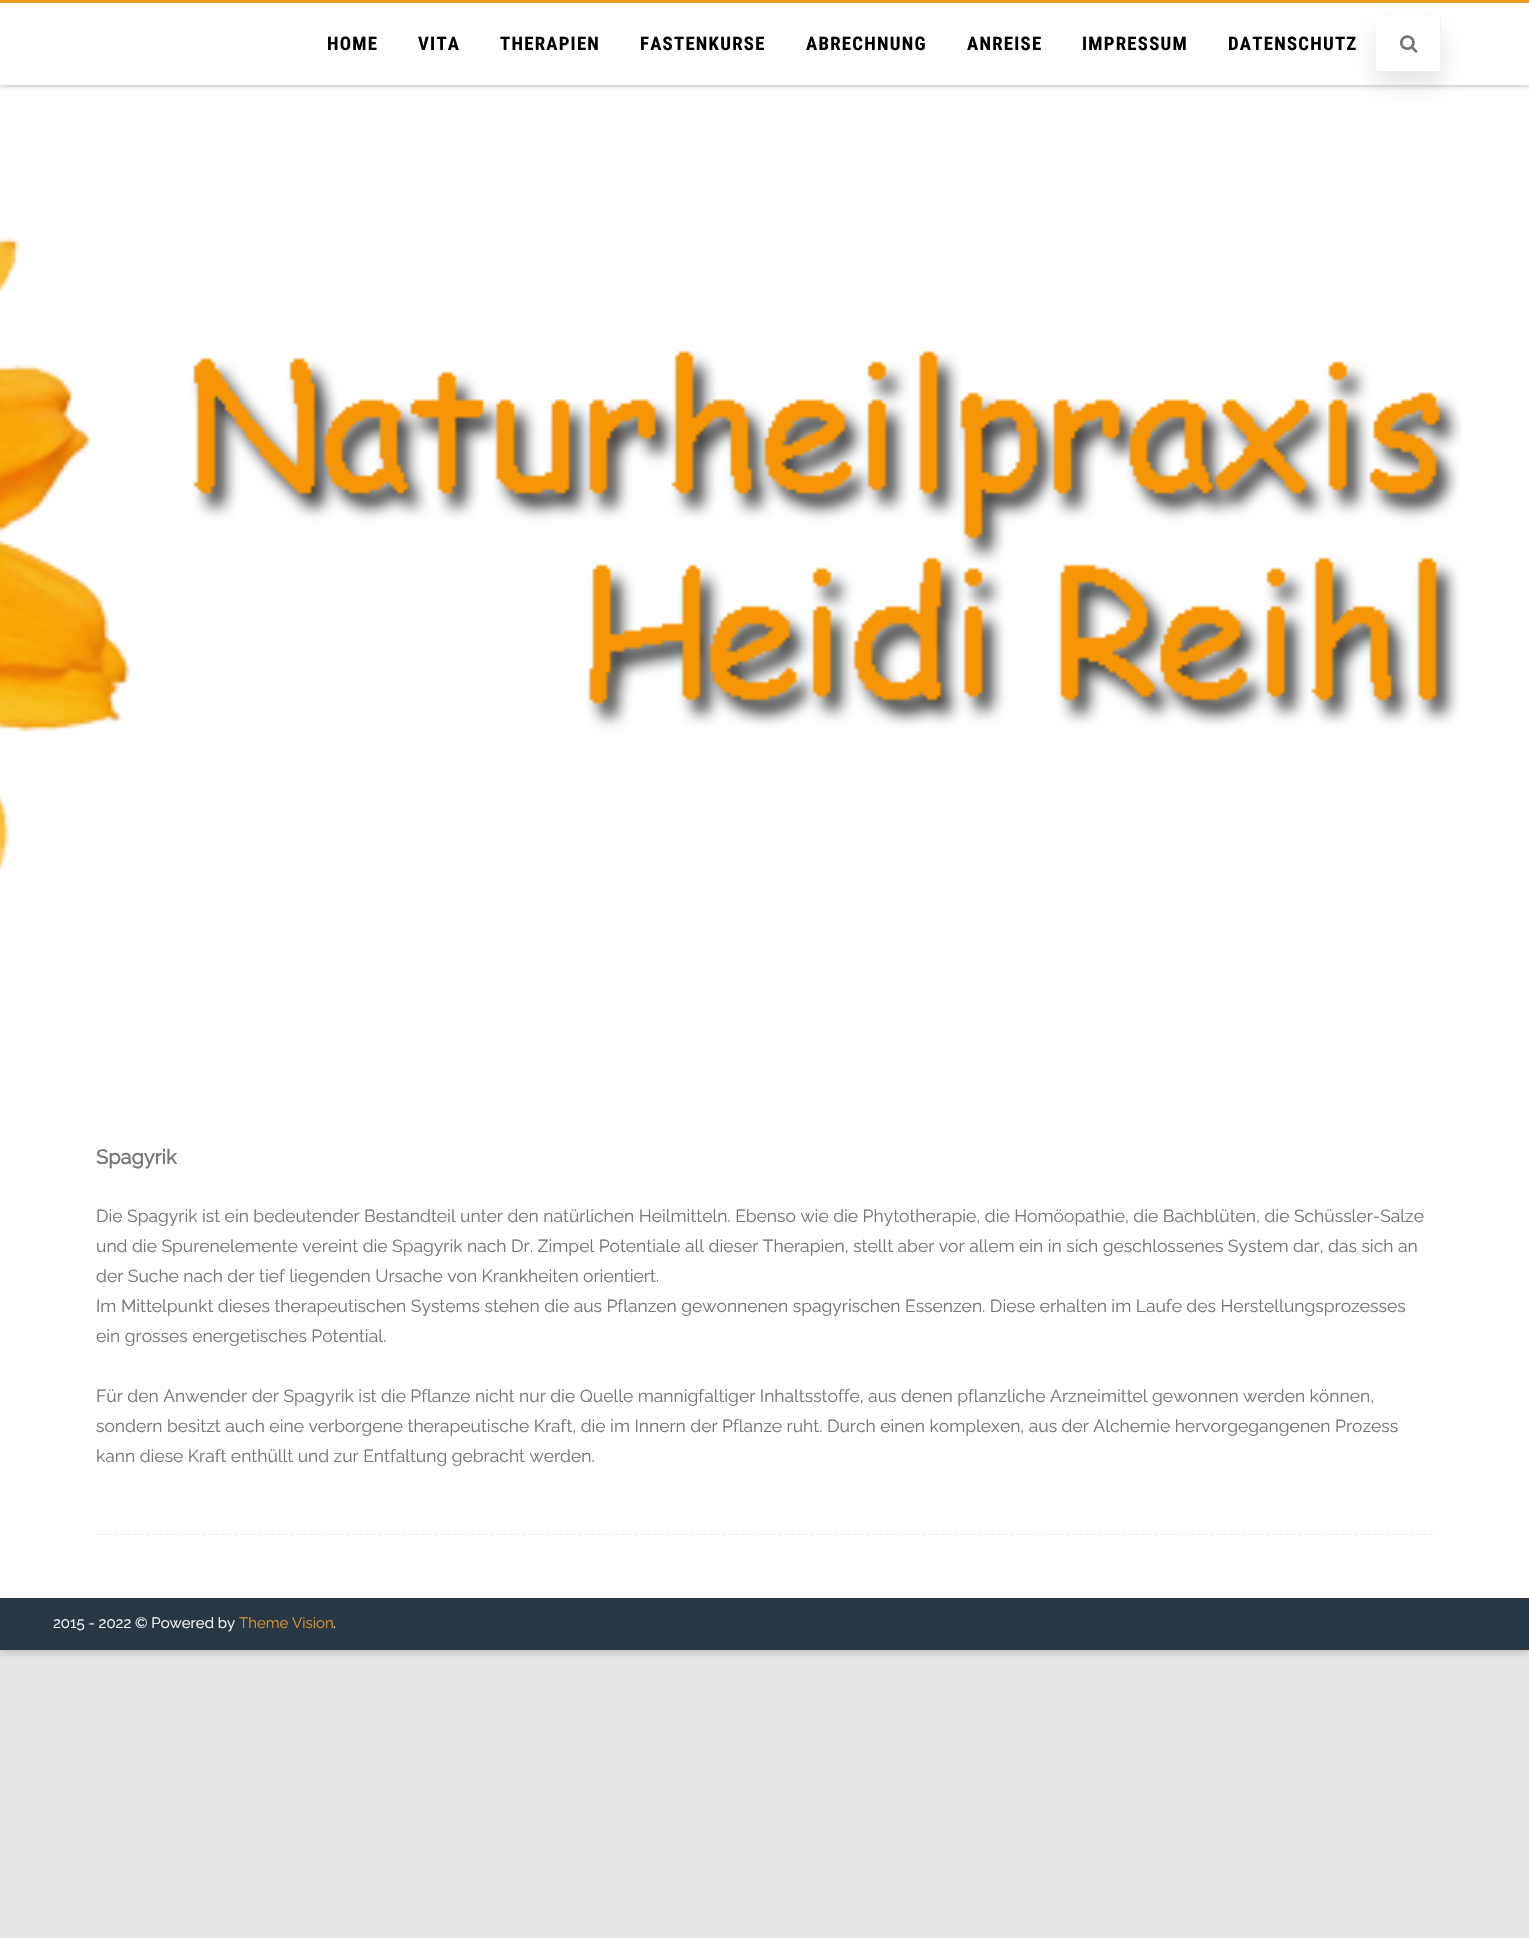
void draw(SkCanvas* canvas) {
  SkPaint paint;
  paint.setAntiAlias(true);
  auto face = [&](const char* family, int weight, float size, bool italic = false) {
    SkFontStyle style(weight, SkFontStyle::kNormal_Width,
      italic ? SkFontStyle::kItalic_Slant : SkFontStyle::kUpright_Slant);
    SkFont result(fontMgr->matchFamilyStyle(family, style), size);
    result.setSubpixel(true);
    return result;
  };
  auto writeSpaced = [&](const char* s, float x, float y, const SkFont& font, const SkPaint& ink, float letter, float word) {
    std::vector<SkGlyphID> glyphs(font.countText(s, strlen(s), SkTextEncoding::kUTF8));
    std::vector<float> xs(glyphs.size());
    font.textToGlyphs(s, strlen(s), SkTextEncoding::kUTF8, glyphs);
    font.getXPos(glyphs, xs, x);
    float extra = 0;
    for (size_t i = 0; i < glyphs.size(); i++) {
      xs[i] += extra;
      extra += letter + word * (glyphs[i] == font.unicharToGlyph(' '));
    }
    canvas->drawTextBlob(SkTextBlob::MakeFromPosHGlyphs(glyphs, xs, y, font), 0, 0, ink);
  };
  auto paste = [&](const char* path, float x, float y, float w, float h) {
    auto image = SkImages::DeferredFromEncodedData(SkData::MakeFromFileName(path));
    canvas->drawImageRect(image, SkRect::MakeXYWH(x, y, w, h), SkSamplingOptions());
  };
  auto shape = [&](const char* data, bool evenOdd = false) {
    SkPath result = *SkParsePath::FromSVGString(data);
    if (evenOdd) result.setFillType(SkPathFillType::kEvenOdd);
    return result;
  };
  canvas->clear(0xffe6e6e6);
  paint.setColor(0x4d646464);
  paint.setMaskFilter(SkMaskFilter::MakeBlur(kNormal_SkBlurStyle, 4));
  canvas->drawRect(SkRect::MakeXYWH(0, 3, 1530, 1650), paint);
  paint.setMaskFilter(nullptr);
  paint.setColor(0xffffffff);
  canvas->drawRect(SkRect::MakeXYWH(0, 3, 1529, 1595), paint);
  paint.setColor(0xfff39b17);
  canvas->drawRect(SkRect::MakeXYWH(0, 0, 1529, 3), paint);
  canvas->save();
  canvas->clipPath(shape("M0 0H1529V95H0ZM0 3H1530V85H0Z", true), true);
  paint.setColor(0xbfa7a9a4);
  paint.setMaskFilter(SkMaskFilter::MakeBlur(kNormal_SkBlurStyle, 2.5f));
  canvas->drawRect(SkRect::MakeXYWH(0, 4, 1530, 82), paint);
  paint.setMaskFilter(nullptr);
  canvas->restore();
  canvas->save();
  canvas->clipPath(shape("M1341 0H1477V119H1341ZM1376 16H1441V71H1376Z", true), true);
  paint.setColor(0x21404040);
  paint.setMaskFilter(SkMaskFilter::MakeBlur(kNormal_SkBlurStyle, 11));
  canvas->drawRect(SkRect::MakeXYWH(1375, 29, 68, 56), paint);
  paint.setMaskFilter(nullptr);
  canvas->restore();
  paint.setColor(0xfff1f1f1);
  canvas->drawRect(SkRect::MakeXYWH(1440, 16, 1, 55), paint);
  paste("img/1.png", 1400, 35, 18, 18);
  paste("img/2.png", 0, 237, 1462, 635);
  paint.setStroke(true);
  paint.setStrokeWidth(1.2f);
  paint.setColor(0xffeeeeee);
  paint.setPathEffect(SkDashPathEffect::Make({{3.75f, 2.51f}}, 0));
  canvas->drawPath(shape("M96 1534.5H1434"), paint);
  paint.setPathEffect(nullptr);
  paint.setStroke(false);
  paint.setColor(0xff293744);
  canvas->drawRect(SkRect::MakeXYWH(0, 1598, 1529, 52), paint);
  auto f0 = face("Roboto Condensed", 700, 18.75f);
  paint.setColor(0xff000000);
  {
    const struct { const char* s; float x, y; } items[] = {
      {"HOME", 327, 50},
      {"VITA", 418, 50},
      {"THERAPIEN", 500, 50},
      {"FASTENKURSE", 640, 50},
      {"ABRECHNUNG", 806, 50},
      {"ANREISE", 967, 50},
      {"IMPRESSUM", 1082, 50},
      {"DATENSCHUTZ", 1228, 50},
    };
    for (auto [s, x, y] : items) {
      writeSpaced(s, x, y, f0, paint, 1.25f, 0);
    }
  }
  auto f1 = face("Raleway", 700, 20);
  paint.setColor(0xff747474);
  canvas->drawString("Spagyrik", 96, 1164, f1, paint);
  auto f2 = face("Raleway", 400, 17.5f);
  {
    const struct { const char* s; float x, y; } items[] = {
      {"Die Spagyrik ist ein bedeutender Bestandteil unter den natürlichen Heilmitteln. Ebenso wie die Phytotherapie, die Homöopathie, die Bachblüten, die Schüssler-Salze", 96, 1222},
      {"und die Spurenelemente vereint die Spagyrik nach Dr. Zimpel Potentiale all dieser Therapien, stellt aber vor allem ein in sich geschlossenes System dar, das sich an", 96, 1252},
      {"der Suche nach der tief liegenden Ursache von Krankheiten orientiert.", 96, 1282},
      {"Im Mittelpunkt dieses therapeutischen Systems stehen die aus Pflanzen gewonnenen spagyrischen Essenzen. Diese erhalten im Laufe des Herstellungsprozesses", 96, 1312},
      {"ein grosses energetisches Potential.", 96, 1342},
      {"Für den Anwender der Spagyrik ist die Pflanze nicht nur die Quelle mannigfaltiger Inhaltsstoffe, aus denen pflanzliche Arzneimittel gewonnen werden können,", 96, 1402},
      {"sondern besitzt auch eine verborgene therapeutische Kraft, die im Innern der Pflanze ruht. Durch einen komplexen, aus der Alchemie hervorgegangenen Prozess", 96, 1432},
      {"kann diese Kraft enthüllt und zur Entfaltung gebracht werden.", 96, 1462},
    };
    for (auto [s, x, y] : items) {
      canvas->drawString(s, x, y, f2, paint);
    }
  }
  auto f3 = face("Raleway", 400, 15);
  paint.setColor(0xffffffff);
  canvas->drawString("2015 - 2022 © Powered by", 53, 1628, f3, paint);
  paint.setColor(0xffdd9933);
  canvas->drawString("Theme Vision", 239, 1628, f3, paint);
  paint.setColor(0xffffffff);
  canvas->drawString(".", 333, 1628, f3, paint);
}
